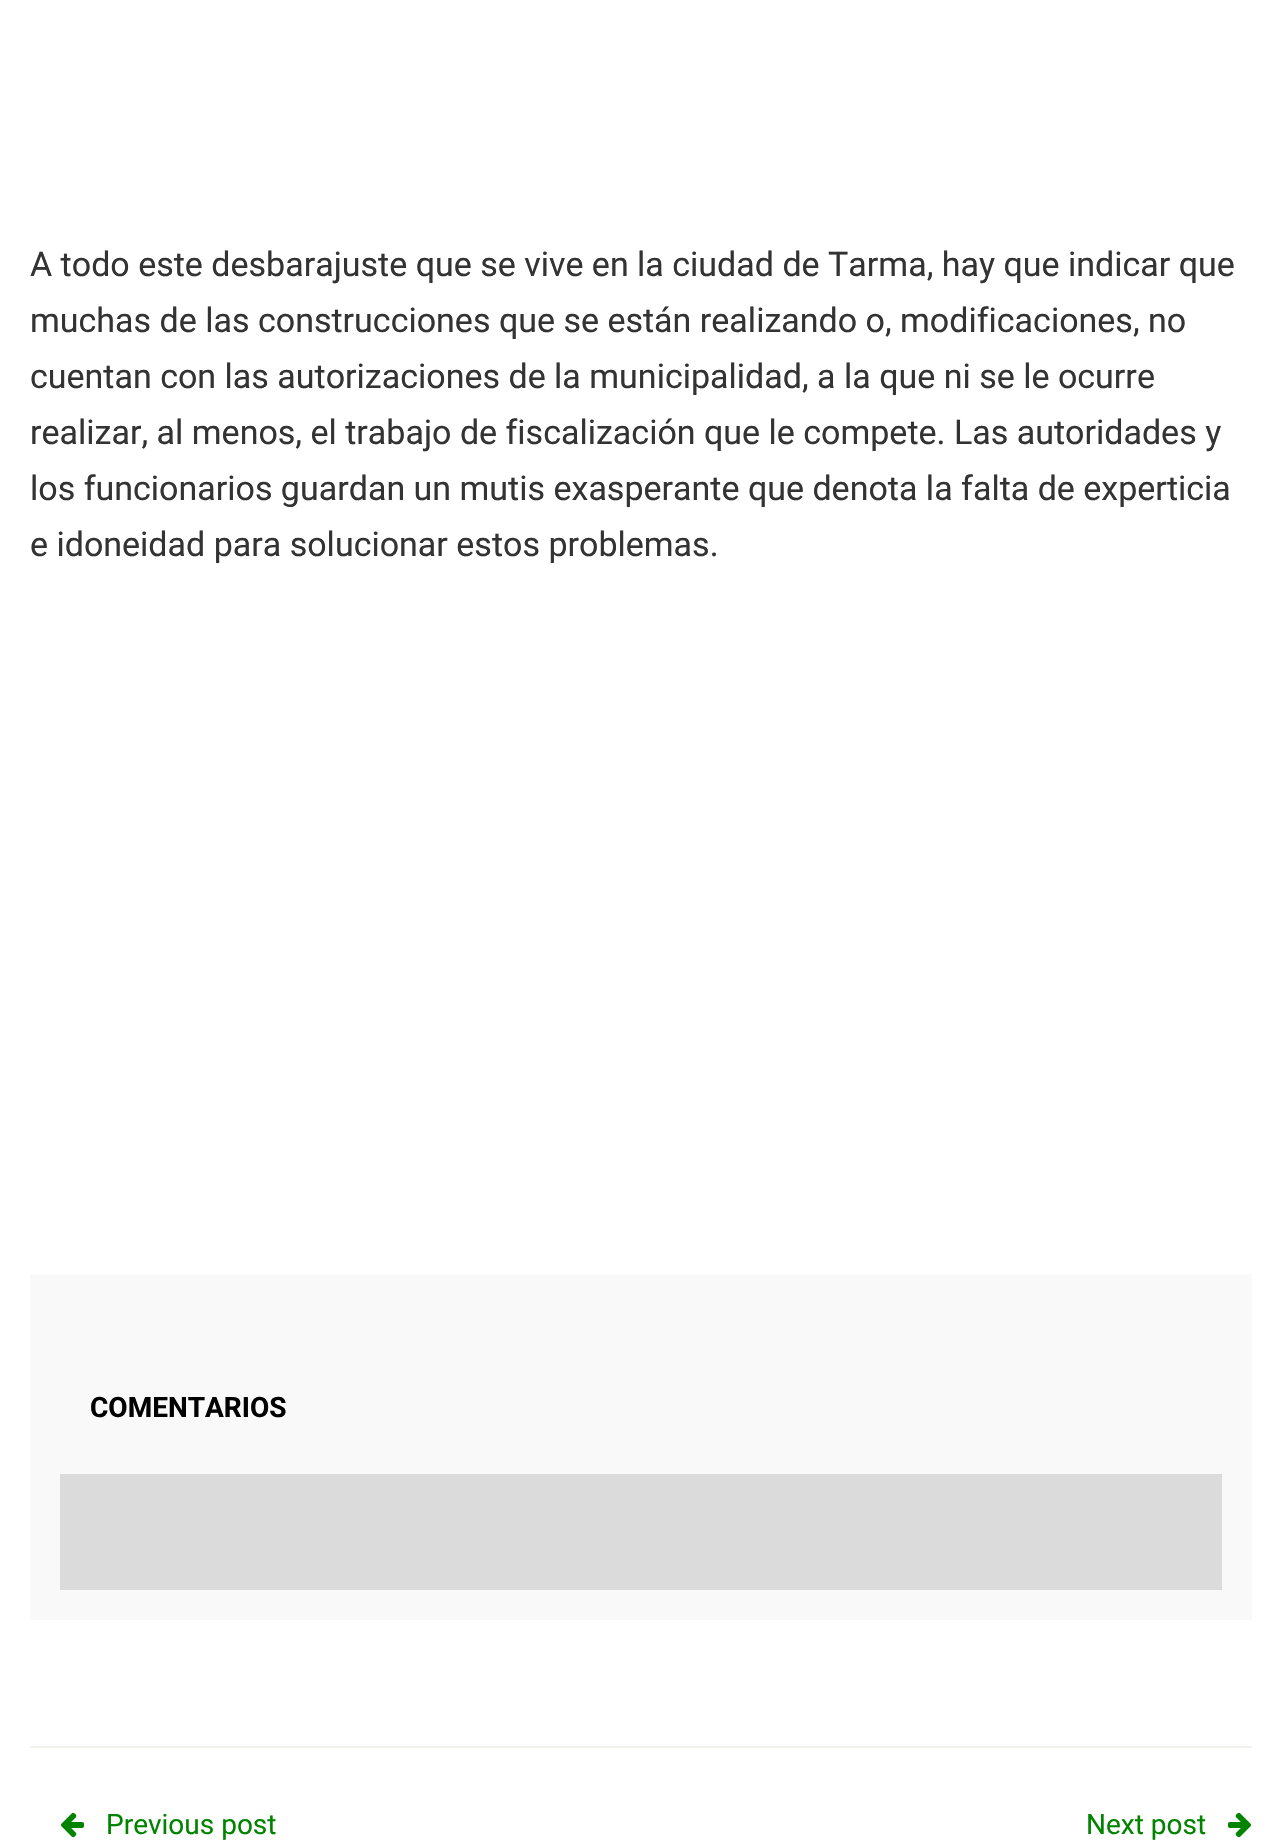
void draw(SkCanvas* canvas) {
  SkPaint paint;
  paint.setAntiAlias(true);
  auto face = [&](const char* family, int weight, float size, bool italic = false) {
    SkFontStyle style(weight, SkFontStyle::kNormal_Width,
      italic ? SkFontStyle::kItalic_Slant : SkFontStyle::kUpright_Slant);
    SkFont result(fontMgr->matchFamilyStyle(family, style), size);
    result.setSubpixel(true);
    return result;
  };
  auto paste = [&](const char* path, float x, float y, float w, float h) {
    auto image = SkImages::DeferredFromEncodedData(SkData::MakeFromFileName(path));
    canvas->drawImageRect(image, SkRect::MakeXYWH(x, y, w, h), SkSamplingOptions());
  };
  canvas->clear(0xffffffff);
  {
    const struct { float x, y, w, h; SkColor color; } items[] = {
      {30, 1274, 1222, 346, 0xfff9f9f9},
      {60, 1474, 1162, 116, 0xffdbdbdb},
      {30, 1746, 1222, 2, 0xfff1f2ec},
    };
    for (auto [x, y, w, h, color] : items) {
      paint.setColor(color);
      canvas->drawRect(SkRect::MakeXYWH(x, y, w, h), paint);
    }
  }
  paste("img/1.png", 61, 1812, 23, 26);
  paste("img/2.png", 1228, 1812, 23, 26);
  auto f0 = face("Roboto", 400, 34);
  paint.setColor(0xff333333);
  {
    const struct { const char* s; float x, y; } items[] = {
      {"A todo este desbarajuste que se vive en la ciudad de Tarma, hay que indicar que", 30, 276},
      {"muchas de las construcciones que se están realizando o, modificaciones, no", 30, 332},
      {"cuentan con las autorizaciones de la municipalidad, a la que ni se le ocurre", 30, 388},
      {"realizar, al menos, el trabajo de fiscalización que le compete. Las autoridades y", 30, 444},
      {"los funcionarios guardan un mutis exasperante que denota la falta de experticia", 30, 500},
      {"e idoneidad para solucionar estos problemas.", 30, 556},
    };
    for (auto [s, x, y] : items) {
      canvas->drawString(s, x, y, f0, paint);
    }
  }
  auto f1 = face("Roboto", 700, 28);
  paint.setColor(0xff000000);
  canvas->drawString("COMENTARIOS", 90, 1417, f1, paint);
  auto f2 = face("Roboto", 400, 28);
  paint.setColor(0xff008400);
  canvas->drawString("Previous post", 106, 1834, f2, paint);
  canvas->drawString("Next post", 1086, 1834, f2, paint);
}
